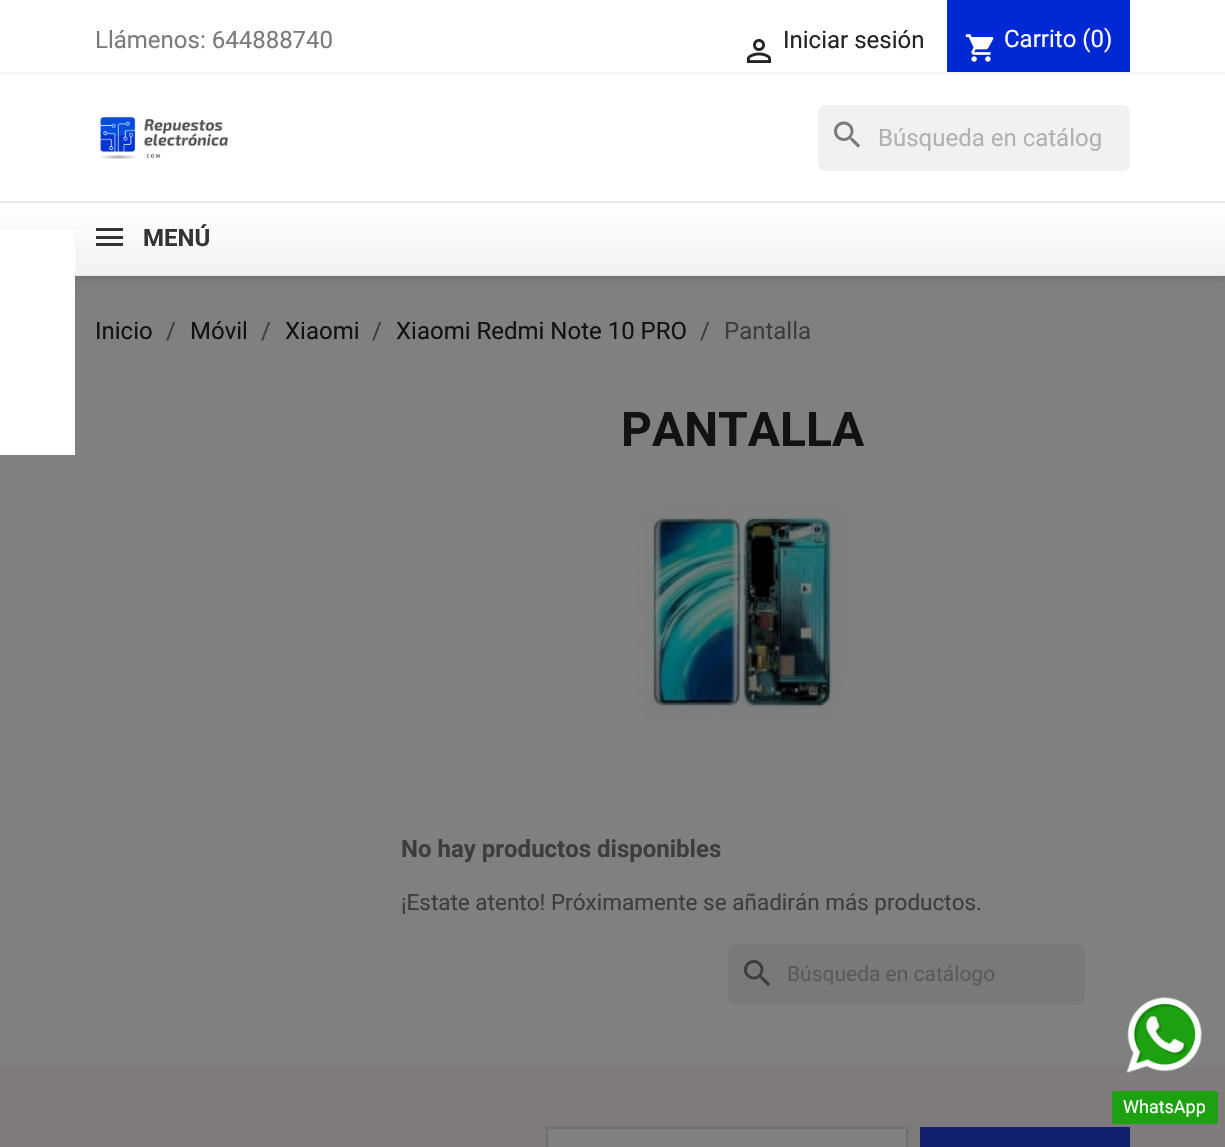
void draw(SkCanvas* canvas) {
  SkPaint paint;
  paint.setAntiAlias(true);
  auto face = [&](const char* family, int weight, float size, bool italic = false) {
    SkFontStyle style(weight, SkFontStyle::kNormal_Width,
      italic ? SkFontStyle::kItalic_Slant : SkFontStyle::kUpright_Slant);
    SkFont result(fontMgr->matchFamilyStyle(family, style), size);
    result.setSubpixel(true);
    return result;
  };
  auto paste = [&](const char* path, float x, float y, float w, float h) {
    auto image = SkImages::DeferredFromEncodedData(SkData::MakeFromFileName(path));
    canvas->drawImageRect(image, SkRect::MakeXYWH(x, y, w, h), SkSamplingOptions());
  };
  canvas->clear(0xff7d7b7b);
  paint.setColor(0xff808080);
  canvas->drawRect(SkRect::MakeXYWH(0, 277, 1225, 790), paint);
  paint.setColor(0x1c000000);
  paint.setMaskFilter(SkMaskFilter::MakeBlur(kNormal_SkBlurStyle, 4));
  canvas->drawRect(SkRect::MakeXYWH(0, 3, 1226, 276), paint);
  paint.setMaskFilter(nullptr);
  paint.setColor(0xffffffff);
  canvas->drawRect(SkRect::MakeXYWH(0, 0, 1225, 201), paint);
  paint.setColor(0xfff6f6f6);
  canvas->drawRect(SkRect::MakeXYWH(0, 72, 1225, 3), paint);
  paste("img/1.png", 746, 39, 26, 24);
  paint.setColor(0xff0029d4);
  canvas->drawRect(SkRect::MakeXYWH(947, 0, 183, 72), paint);
  paste("img/2.png", 965, 34, 29, 28);
  paste("img/3.png", 100, 117, 128, 42);
  paint.setColor(0xfff1f1f1);
  canvas->drawRoundRect(SkRect::MakeXYWH(818, 105, 312, 66), 8, 8, paint);
  paste("img/4.png", 834, 121, 27, 27);
  {
    const SkColor colors[] = {0xffffffff, 0xfff2f2f2};
    const float stops[] = {0, 1};
    const SkPoint ends[] = {{613, 202}, {613, 275}};
    paint.setShader(SkGradientShader::MakeLinear(ends, colors, stops, 2, SkTileMode::kClamp));
    paint.setAlpha(255);
  }
  canvas->drawRect(SkRect::MakeXYWH(0, 203, 1225, 72), paint);
  paint.setShader(nullptr);
  {
    const struct { float x, y, w, h; SkColor color; } items[] = {
      {0, 201, 1225, 2, 0xffe7e7e7},
      {75, 275, 1150, 1, 0xffe7e7e7},
      {75, 276, 1150, 1, 0xff747474},
      {96, 228, 27, 3, 0xff333333},
      {96, 236, 27, 3, 0xff333333},
      {96, 243, 27, 3, 0xff333333},
    };
    for (auto [x, y, w, h, color] : items) {
      paint.setColor(color);
      canvas->drawRect(SkRect::MakeXYWH(x, y, w, h), paint);
    }
  }
  paste("img/5.png", 636, 504, 211, 216);
  paint.setColor(0xff797979);
  canvas->drawRoundRect(SkRect::MakeXYWH(728, 944, 357, 61), 8, 8, paint);
  paste("img/6.png", 744, 960, 27, 26);
  paint.setColor(0xffffffff);
  canvas->drawRect(SkRect::MakeXYWH(0, 230, 75, 225), paint);
  paste("img/7.png", 1126, 997, 76, 76);
  paint.setColor(0xff1da110);
  canvas->drawRoundRect(SkRect::MakeXYWH(1112, 1091, 106, 33), 3, 3, paint);
  paint.setColor(0xff808080);
  canvas->drawRect(SkRect::MakeXYWH(547, 1128, 360, 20), paint);
  paint.setStroke(true);
  paint.setStrokeWidth(2);
  paint.setColor(0xff6f6f6f);
  canvas->drawRect(SkRect::MakeXYWH(547, 1128, 360, 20), paint);
  paint.setStroke(false);
  paint.setColor(0xff121f6c);
  canvas->drawRect(SkRect::MakeXYWH(920, 1127, 210, 20), paint);
  auto f0 = face("Roboto", 400, 24);
  paint.setColor(0xff7a7a7a);
  canvas->drawString("Llámenos: 644888740", 95, 48, f0, paint);
  paint.setColor(0xff232323);
  canvas->drawString("Iniciar sesión", 783, 48, f0, paint);
  paint.setColor(0xffffffff);
  canvas->drawString("Carrito (0)", 1004, 47, f0, paint);
  paint.setColor(0xffb1b1b1);
  canvas->drawString("Búsqueda en catálog", 878, 146, f0, paint);
  auto f1 = face("Roboto", 700, 24);
  paint.setColor(0xff333333);
  canvas->drawString("MENÚ", 143, 246, f1, paint);
  paint.setColor(0xff121212);
  canvas->drawString("Inicio", 95, 339, f0, paint);
  paint.setColor(0xff3d3d3d);
  canvas->drawString("/", 166, 339, f0, paint);
  paint.setColor(0xff121212);
  canvas->drawString("Móvil", 190, 339, f0, paint);
  paint.setColor(0xff3d3d3d);
  canvas->drawString("/", 261, 339, f0, paint);
  paint.setColor(0xff121212);
  canvas->drawString("Xiaomi", 285, 339, f0, paint);
  paint.setColor(0xff3d3d3d);
  canvas->drawString("/", 372, 339, f0, paint);
  paint.setColor(0xff121212);
  canvas->drawString("Xiaomi Redmi Note 10 PRO", 396, 339, f0, paint);
  paint.setColor(0xff3d3d3d);
  canvas->drawString("/", 700, 339, f0, paint);
  canvas->drawString("Pantalla", 724, 339, f0, paint);
  auto f2 = face("Roboto", 700, 48);
  paint.setColor(0xff121212);
  canvas->drawString("PANTALLA", 621, 446, f2, paint);
  paint.setColor(0xff3d3d3d);
  canvas->drawString("No hay productos disponibles", 401, 857, f1, paint);
  auto f3 = face("Roboto", 400, 22.5f);
  canvas->drawString("¡Estate atento! Próximamente se añadirán más productos.", 401, 910, f3, paint);
  auto f4 = face("Roboto", 400, 21);
  paint.setColor(0xff595959);
  canvas->drawString("Búsqueda en catálogo", 787, 981, f4, paint);
  auto f5 = face("Roboto", 400, 18);
  paint.setColor(0xffffffff);
  canvas->drawString("WhatsApp", 1123, 1113, f5, paint);
}
